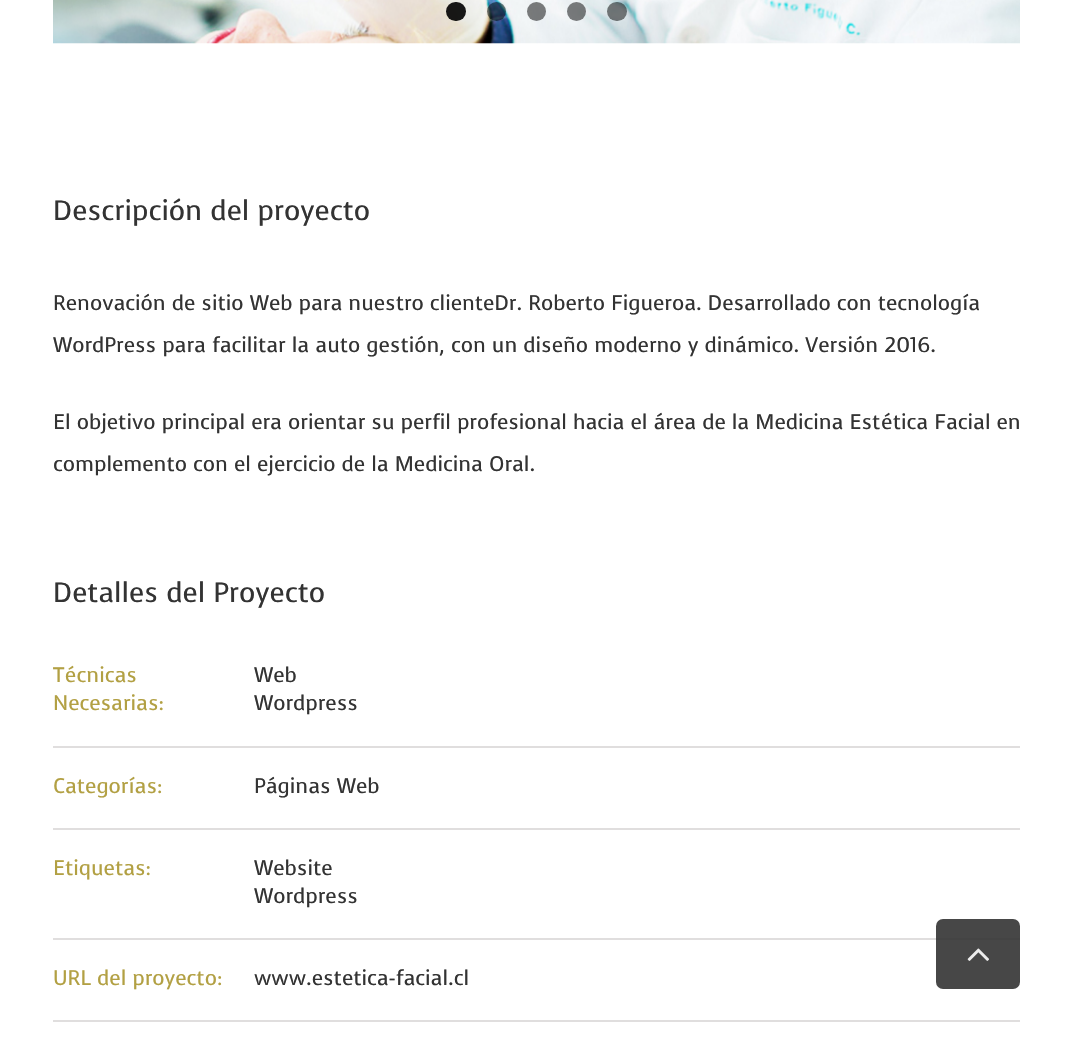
void draw(SkCanvas* canvas) {
  SkPaint paint;
  paint.setAntiAlias(true);
  auto face = [&](const char* family, int weight, float size, bool italic = false) {
    SkFontStyle style(weight, SkFontStyle::kNormal_Width,
      italic ? SkFontStyle::kItalic_Slant : SkFontStyle::kUpright_Slant);
    SkFont result(fontMgr->matchFamilyStyle(family, style), size);
    result.setSubpixel(true);
    return result;
  };
  auto paste = [&](const char* path, float x, float y, float w, float h) {
    auto image = SkImages::DeferredFromEncodedData(SkData::MakeFromFileName(path));
    canvas->drawImageRect(image, SkRect::MakeXYWH(x, y, w, h), SkSamplingOptions());
  };
  canvas->clear(0xffffffff);
  paste("img/1.png", 53, 0, 967, 44);
  paint.setColor(0xe6000000);
  canvas->drawRoundRect(SkRect::MakeXYWH(446, 2, 20, 19), 9.5f, 9.5f, paint);
  paint.setColor(0x80000000);
  canvas->drawCircle(496.5f, 11.5f, 9.5f, paint);
  canvas->drawCircle(536.5f, 11.5f, 9.5f, paint);
  canvas->drawCircle(576.5f, 11.5f, 9.5f, paint);
  canvas->drawRoundRect(SkRect::MakeXYWH(607, 2, 20, 19), 9.5f, 9.5f, paint);
  {
    const struct { float x, y, w, h; SkColor color; } items[] = {
      {53, 746, 967, 2, 0xffe0dede},
      {53, 828, 967, 2, 0xffe0dede},
      {53, 938, 967, 2, 0xffe0dede},
      {53, 1020, 967, 2, 0xffe0dede},
    };
    for (auto [x, y, w, h, color] : items) {
      paint.setColor(color);
      canvas->drawRect(SkRect::MakeXYWH(x, y, w, h), paint);
    }
  }
  paint.setColor(0xe6333333);
  canvas->drawRoundRect(SkRect::MakeXYWH(936, 919, 84, 70), 7, 7, paint);
  paste("img/2.png", 967, 948, 22, 13);
  auto f0 = face("Voces", 400, 28);
  paint.setColor(0xff333333);
  canvas->drawString("Descripción del proyecto", 53, 220, f0, paint);
  auto f1 = face("Voces", 400, 21);
  {
    const struct { const char* s; float x, y; } items[] = {
      {"Renovación de sitio Web para nuestro clienteDr. Roberto Figueroa. Desarrollado con tecnología", 53, 310},
      {"WordPress para facilitar la auto gestión, con un diseño moderno y dinámico. Versión 2016.", 53, 352},
      {"El objetivo principal era orientar su perfil profesional hacia el área de la Medicina Estética Facial en", 53, 429},
      {"complemento con el ejercicio de la Medicina Oral.", 53, 471},
    };
    for (auto [s, x, y] : items) {
      canvas->drawString(s, x, y, f1, paint);
    }
  }
  canvas->drawString("Detalles del Proyecto", 53, 602, f0, paint);
  canvas->save();
  canvas->clipRect(SkRect::MakeXYWH(53, 663, 967, 83));
  paint.setColor(0xffb2a043);
  canvas->drawString("Técnicas", 53, 682, f1, paint);
  canvas->restore();
  canvas->drawString("Necesarias:", 53, 710, f1, paint);
  paint.setColor(0xff333333);
  canvas->drawString("Web", 254, 682, f1, paint);
  canvas->drawString("Wordpress", 254, 710, f1, paint);
  paint.setColor(0xffb2a043);
  canvas->drawString("Categorías:", 53, 793, f1, paint);
  paint.setColor(0xff333333);
  canvas->drawString("Páginas Web", 254, 793, f1, paint);
  paint.setColor(0xffb2a043);
  canvas->drawString("Etiquetas:", 53, 875, f1, paint);
  paint.setColor(0xff333333);
  canvas->drawString("Website", 254, 875, f1, paint);
  canvas->drawString("Wordpress", 254, 903, f1, paint);
  paint.setColor(0xffb2a043);
  canvas->drawString("URL del proyecto:", 53, 985, f1, paint);
  paint.setColor(0xff333333);
  canvas->drawString("www.estetica-facial.cl", 254, 985, f1, paint);
}
